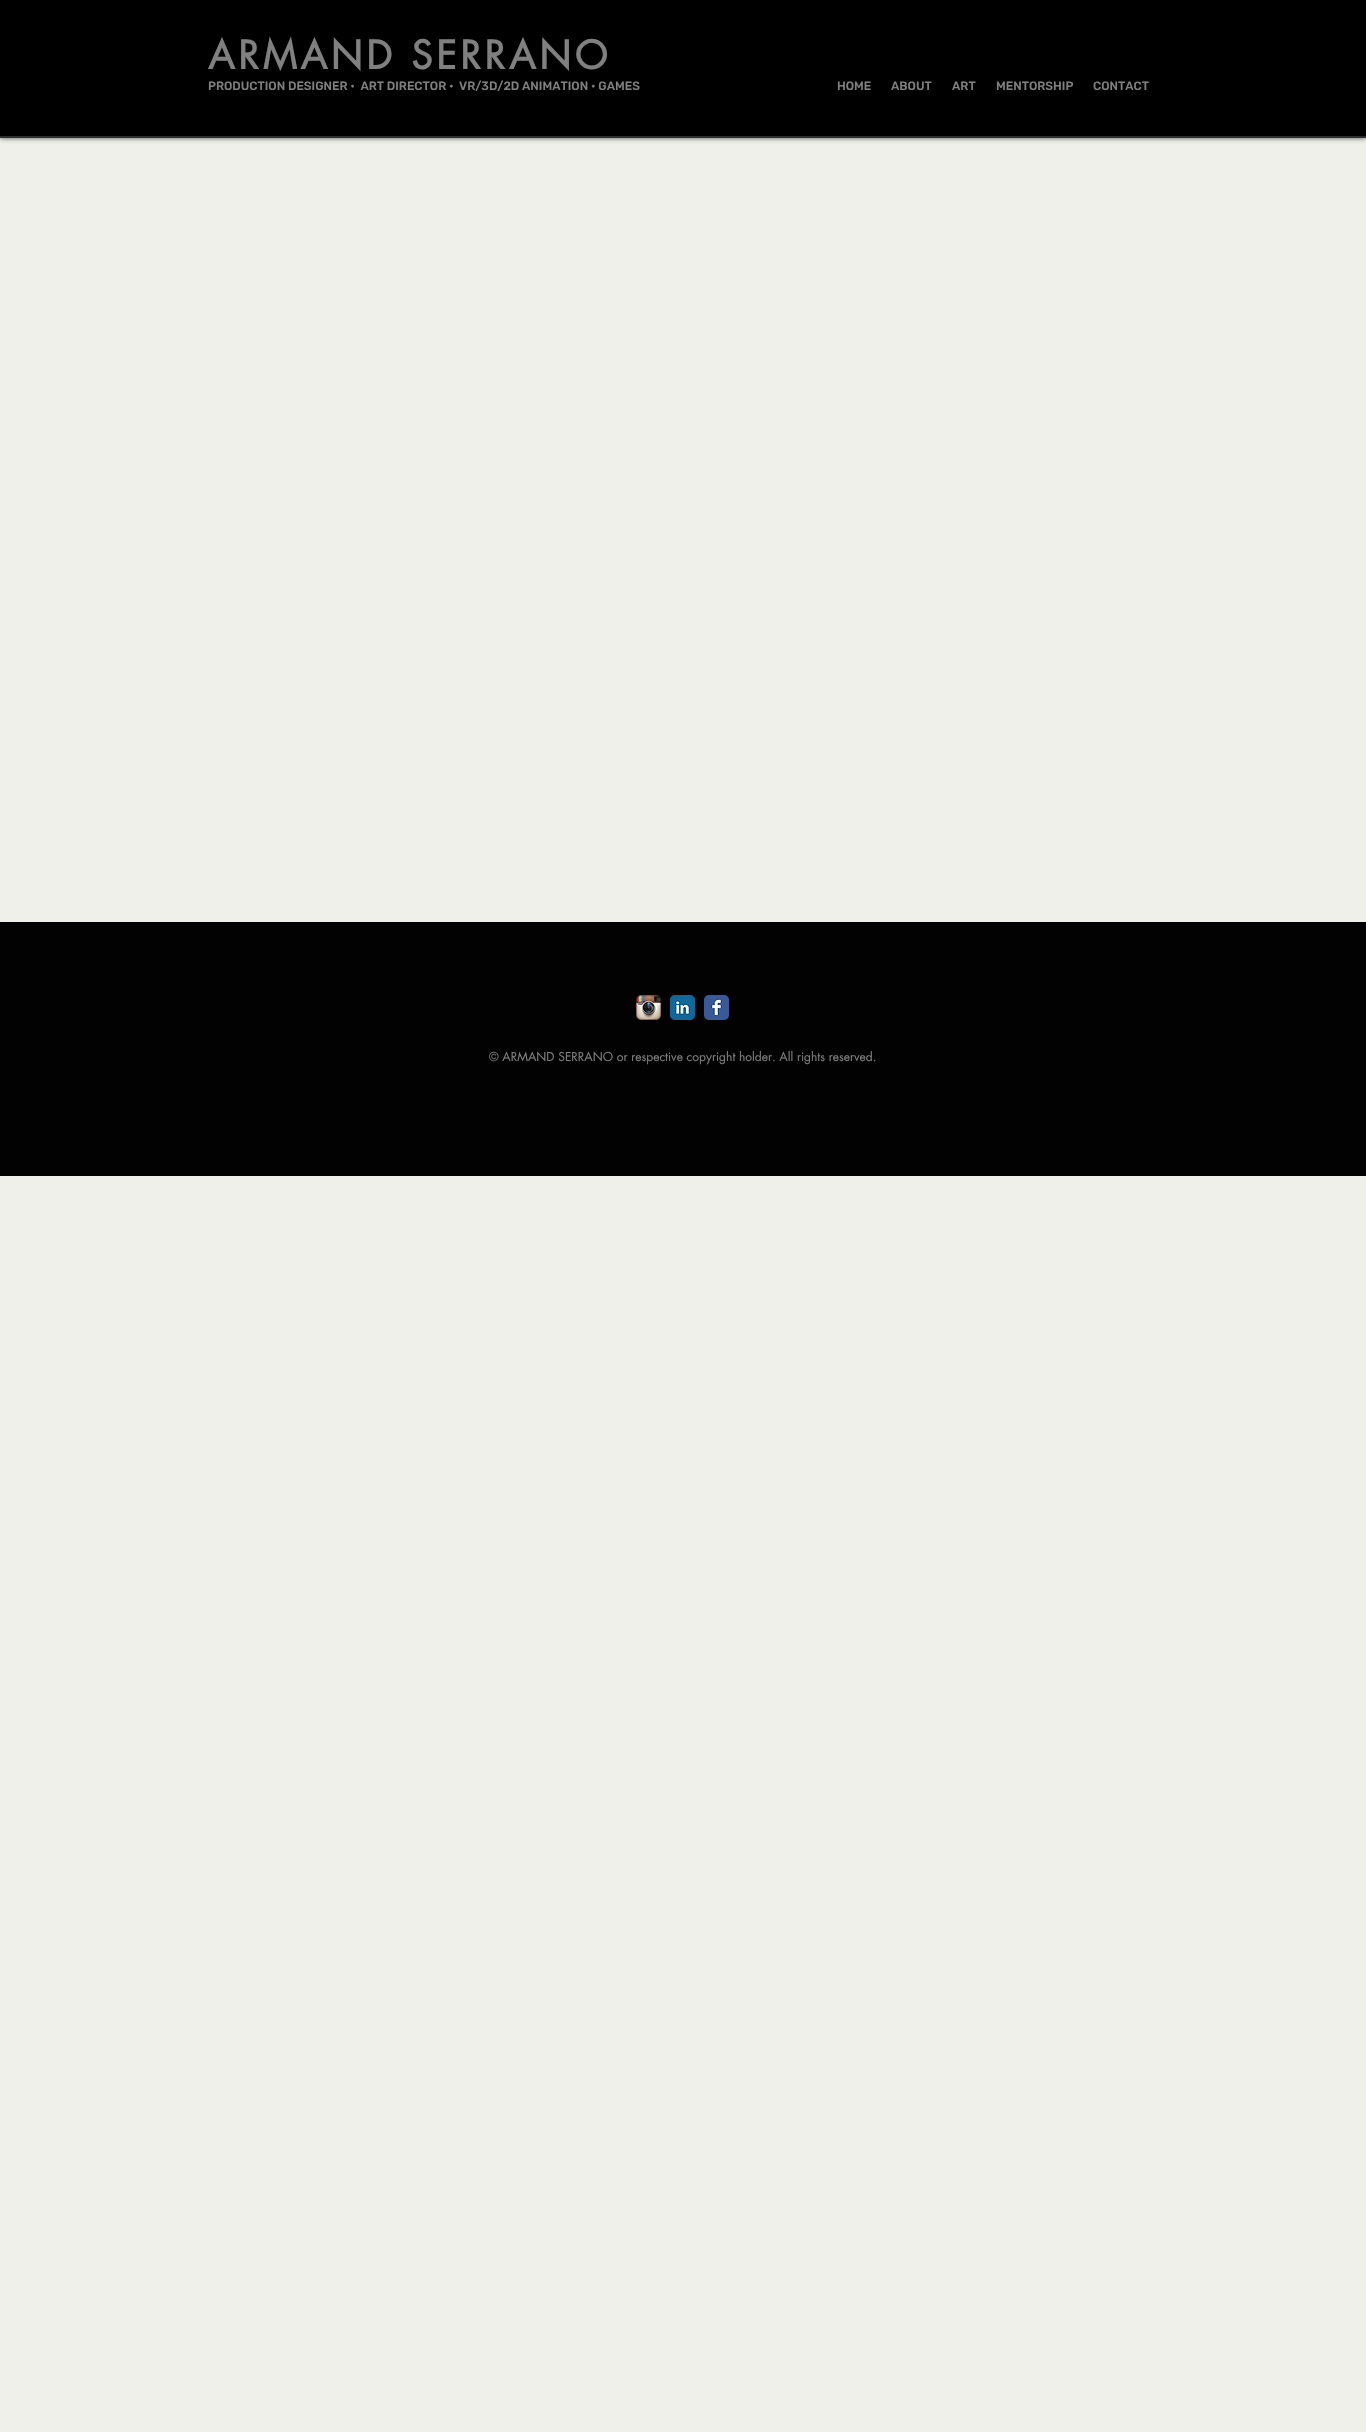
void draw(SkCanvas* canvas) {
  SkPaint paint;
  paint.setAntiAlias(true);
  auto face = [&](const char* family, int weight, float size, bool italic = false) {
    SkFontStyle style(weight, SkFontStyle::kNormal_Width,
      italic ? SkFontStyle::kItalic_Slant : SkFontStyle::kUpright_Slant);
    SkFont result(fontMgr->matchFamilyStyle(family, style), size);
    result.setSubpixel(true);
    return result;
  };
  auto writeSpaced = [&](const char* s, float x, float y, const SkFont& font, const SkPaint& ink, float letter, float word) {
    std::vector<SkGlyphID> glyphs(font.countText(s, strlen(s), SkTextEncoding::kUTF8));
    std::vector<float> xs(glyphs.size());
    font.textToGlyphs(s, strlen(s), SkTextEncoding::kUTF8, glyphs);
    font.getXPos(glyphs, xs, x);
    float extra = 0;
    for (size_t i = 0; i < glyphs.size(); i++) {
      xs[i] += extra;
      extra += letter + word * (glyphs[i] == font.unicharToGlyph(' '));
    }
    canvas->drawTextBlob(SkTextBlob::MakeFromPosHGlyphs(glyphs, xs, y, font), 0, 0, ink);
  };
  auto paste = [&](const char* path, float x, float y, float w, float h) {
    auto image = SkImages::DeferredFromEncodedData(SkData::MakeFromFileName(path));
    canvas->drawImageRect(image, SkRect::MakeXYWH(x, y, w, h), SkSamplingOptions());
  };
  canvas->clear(0xffeef0e9);
  paint.setColor(0xb3000000);
  paint.setMaskFilter(SkMaskFilter::MakeBlur(kNormal_SkBlurStyle, 2.5f));
  canvas->drawRect(SkRect::MakeXYWH(0, 0, 1366, 138), paint);
  paint.setMaskFilter(nullptr);
  {
    const struct { float x, y, w, h; SkColor color; } items[] = {
      {0, 136, 1366, 2, 0xff2f2e2e},
      {0, 0, 1366, 136, 0xff000000},
      {0, 922, 1366, 254, 0xff020202},
    };
    for (auto [x, y, w, h, color] : items) {
      paint.setColor(color);
      canvas->drawRect(SkRect::MakeXYWH(x, y, w, h), paint);
    }
  }
  paste("img/1.png", 636, 995, 25, 25);
  paste("img/2.png", 670, 995, 25, 25);
  paste("img/3.png", 704, 995, 25, 25);
  auto f0 = face("futura", 700, 38);
  paint.setColor(0xff808080);
  writeSpaced("ARMAND SERRANO", 208, 69, f0, paint, 3.75f, 0);
  auto f1 = face("Rubik", 500, 12);
  {
    const struct { const char* s; float x, y; } items[] = {
      {"PRODUCTION DESIGNER •  ART DIRECTOR •  VR/3D/2D ANIMATION • GAMES", 208, 90},
      {"HOME", 837, 90},
      {"ABOUT", 891, 90},
      {"ART", 952, 90},
      {"MENTORSHIP", 996, 90},
      {"CONTACT", 1093, 90},
    };
    for (auto [s, x, y] : items) {
      canvas->drawString(s, x, y, f1, paint);
    }
  }
  auto f2 = face("futura", 400, 12);
  canvas->drawString("© ARMAND SERRANO or respective copyright holder. All rights reserved.", 489, 1061, f2, paint);
}
